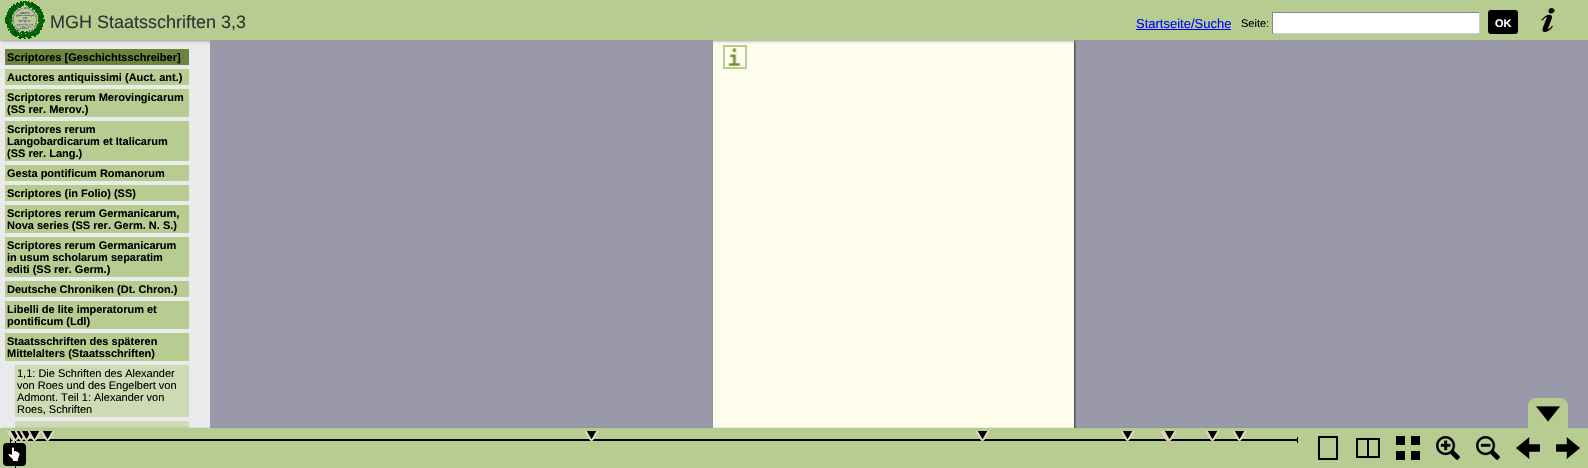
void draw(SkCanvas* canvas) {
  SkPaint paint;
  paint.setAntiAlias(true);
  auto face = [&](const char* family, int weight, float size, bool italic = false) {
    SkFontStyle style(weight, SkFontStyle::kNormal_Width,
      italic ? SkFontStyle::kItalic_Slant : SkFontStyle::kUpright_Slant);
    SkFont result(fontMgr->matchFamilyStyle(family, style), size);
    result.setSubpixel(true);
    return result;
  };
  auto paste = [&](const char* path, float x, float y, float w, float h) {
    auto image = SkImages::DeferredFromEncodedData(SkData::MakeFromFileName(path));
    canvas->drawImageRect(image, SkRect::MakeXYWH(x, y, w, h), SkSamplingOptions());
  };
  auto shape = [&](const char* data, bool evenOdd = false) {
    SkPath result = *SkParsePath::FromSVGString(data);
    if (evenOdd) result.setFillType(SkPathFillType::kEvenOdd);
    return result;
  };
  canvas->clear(0xff9999aa);
  paint.setColor(0xff333333);
  paint.setMaskFilter(SkMaskFilter::MakeBlur(kNormal_SkBlurStyle, 1));
  canvas->drawRect(SkRect::MakeXYWH(714, 6, 361, 447), paint);
  paint.setMaskFilter(nullptr);
  paint.setColor(0xfffefdeb);
  canvas->drawRect(SkRect::MakeXYWH(713, 40, 361, 388), paint);
  paint.setStroke(true);
  paint.setStrokeWidth(2);
  paint.setColor(0xffb6cc91);
  canvas->drawRect(SkRect::MakeXYWH(724, 46, 22, 22), paint);
  paste("img/1.png", 728, 48, 13, 18);
  paint.setStroke(false);
  paint.setColor(0xffeaeaea);
  canvas->drawRect(SkRect::MakeXYWH(0, 40, 210, 388), paint);
  paint.setColor(0xff999999);
  paint.setMaskFilter(SkMaskFilter::MakeBlur(kNormal_SkBlurStyle, 1.5f));
  canvas->drawRect(SkRect::MakeXYWH(0, 1, 1588, 40), paint);
  paint.setMaskFilter(nullptr);
  paint.setColor(0xffb6cc91);
  canvas->drawRect(SkRect::MakeXYWH(0, 0, 1588, 40), paint);
  paste("img/2.png", 5, 1, 40, 38);
  {
    const struct { float x, y, w, h; SkColor color; } items[] = {
      {1136, 29, 95, 1, 0xff0000ff},
      {1273, 13, 206, 20, 0xffffffff},
      {1272, 12, 208, 1, 0xff888888},
      {1479, 12, 1, 22, 0xffcccccc},
      {1272, 33, 208, 1, 0xffcccccc},
      {1272, 12, 1, 22, 0xff888888},
    };
    for (auto [x, y, w, h, color] : items) {
      paint.setColor(color);
      canvas->drawRect(SkRect::MakeXYWH(x, y, w, h), paint);
    }
  }
  paint.setColor(0xff000000);
  canvas->drawRoundRect(SkRect::MakeXYWH(1488, 10, 30, 24), 3, 3, paint);
  paste("img/3.png", 1541, 8, 14, 24);
  paint.setColor(0xffccdbb3);
  canvas->drawRect(SkRect::MakeXYWH(15, 421, 174, 7), paint);
  paint.setColor(0xff333333);
  paint.setMaskFilter(SkMaskFilter::MakeBlur(kNormal_SkBlurStyle, 1));
  canvas->drawRect(SkRect::MakeXYWH(1, 429, 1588, 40), paint);
  paint.setMaskFilter(nullptr);
  paint.setColor(0xffb6cc91);
  canvas->drawRect(SkRect::MakeXYWH(0, 428, 1588, 40), paint);
  canvas->drawPath(shape("M1536 398H1560C1564.5 398 1568 401.5 1568 406V428H1528V406C1528 401.5 1531.5 398 1536 398Z"), paint);
  paste("img/4.png", 1536, 406, 24, 16);
  paint.setColor(0xff000000);
  canvas->drawRect(SkRect::MakeXYWH(10, 439, 1288, 2), paint);
  canvas->drawRect(SkRect::MakeXYWH(10, 437, 1, 6), paint);
  paste("img/5.png", 6, 431, 9, 10);
  paste("img/6.png", 9, 431, 10, 10);
  paste("img/7.png", 14, 431, 10, 10);
  paste("img/8.png", 19, 431, 12, 10);
  paste("img/9.png", 27, 431, 14, 10);
  paste("img/10.png", 41, 431, 14, 10);
  paste("img/11.png", 584, 431, 15, 10);
  paste("img/11.png", 975, 431, 15, 10);
  paste("img/11.png", 1120, 431, 15, 10);
  paste("img/12.png", 1160, 431, 9, 10);
  paste("img/13.png", 1163, 431, 14, 10);
  paste("img/11.png", 1205, 431, 15, 10);
  paste("img/11.png", 1232, 431, 15, 10);
  canvas->drawRect(SkRect::MakeXYWH(1297, 437, 1, 6), paint);
  paste("img/14.png", 3, 441, 23, 27);
  paste("img/15.png", 1318, 436, 20, 24);
  paste("img/16.png", 1356, 438, 24, 20);
  paste("img/17.png", 1396, 436, 24, 24);
  paste("img/18.png", 1436, 436, 24, 24);
  paste("img/19.png", 1476, 436, 24, 24);
  paste("img/20.png", 1516, 437, 24, 22);
  paste("img/21.png", 1556, 437, 24, 22);
  {
    const struct { float x, y, w, h; SkColor color; } items[] = {
      {5, 49, 184, 16, 0xff6b853e},
      {5, 69, 184, 16, 0xffb6cc91},
      {5, 89, 184, 28, 0xffb6cc91},
      {5, 121, 184, 40, 0xffb6cc91},
      {5, 165, 184, 16, 0xffb6cc91},
      {5, 185, 184, 16, 0xffb6cc91},
      {5, 205, 184, 28, 0xffb6cc91},
      {5, 237, 184, 40, 0xffb6cc91},
      {5, 281, 184, 16, 0xffb6cc91},
      {5, 301, 184, 28, 0xffb6cc91},
      {5, 333, 184, 28, 0xffb6cc91},
      {15, 365, 174, 52, 0xffccdbb3},
    };
    for (auto [x, y, w, h, color] : items) {
      paint.setColor(color);
      canvas->drawRect(SkRect::MakeXYWH(x, y, w, h), paint);
    }
  }
  auto f0 = face("Liberation Sans", 400, 18);
  paint.setColor(0xff333333);
  canvas->drawString("MGH Staatsschriften 3,3", 50, 28, f0, paint);
  auto f1 = face("Liberation Sans", 400, 13);
  paint.setColor(0xff0000ff);
  canvas->drawString("Startseite/Suche", 1136, 28, f1, paint);
  auto f2 = face("Liberation Sans", 400, 11);
  paint.setColor(0xff000000);
  canvas->drawString("Seite:", 1241, 27, f2, paint);
  auto f3 = face("Liberation Sans", 700, 11);
  paint.setColor(0xffffffff);
  canvas->drawString("OK", 1495, 27, f3, paint);
  paint.setColor(0xff000000);
  {
    const struct { const char* s; float x, y; } items[] = {
      {"Scriptores [Geschichtsschreiber]", 7, 61},
      {"Auctores antiquissimi (Auct. ant.)", 7, 81},
      {"Scriptores rerum Merovingicarum", 7, 101},
      {"(SS rer. Merov.)", 7, 113},
      {"Scriptores rerum", 7, 133},
      {"Langobardicarum et Italicarum", 7, 145},
      {"(SS rer. Lang.)", 7, 157},
      {"Gesta pontificum Romanorum", 7, 177},
      {"Scriptores (in Folio) (SS)", 7, 197},
      {"Scriptores rerum Germanicarum,", 7, 217},
      {"Nova series (SS rer. Germ. N. S.)", 7, 229},
      {"Scriptores rerum Germanicarum", 7, 249},
      {"in usum scholarum separatim", 7, 261},
      {"editi (SS rer. Germ.)", 7, 273},
      {"Deutsche Chroniken (Dt. Chron.)", 7, 293},
      {"Libelli de lite imperatorum et", 7, 313},
      {"pontificum (Ldl)", 7, 325},
      {"Staatsschriften des späteren", 7, 345},
      {"Mittelalters (Staatsschriften)", 7, 357},
    };
    for (auto [s, x, y] : items) {
      canvas->drawString(s, x, y, f3, paint);
    }
  }
  {
    const struct { const char* s; float x, y; } items[] = {
      {"1,1: Die Schriften des Alexander", 17, 377},
      {"von Roes und des Engelbert von", 17, 389},
      {"Admont. Teil 1: Alexander von", 17, 401},
      {"Roes, Schriften", 17, 413},
    };
    for (auto [s, x, y] : items) {
      canvas->drawString(s, x, y, f2, paint);
    }
  }
}
